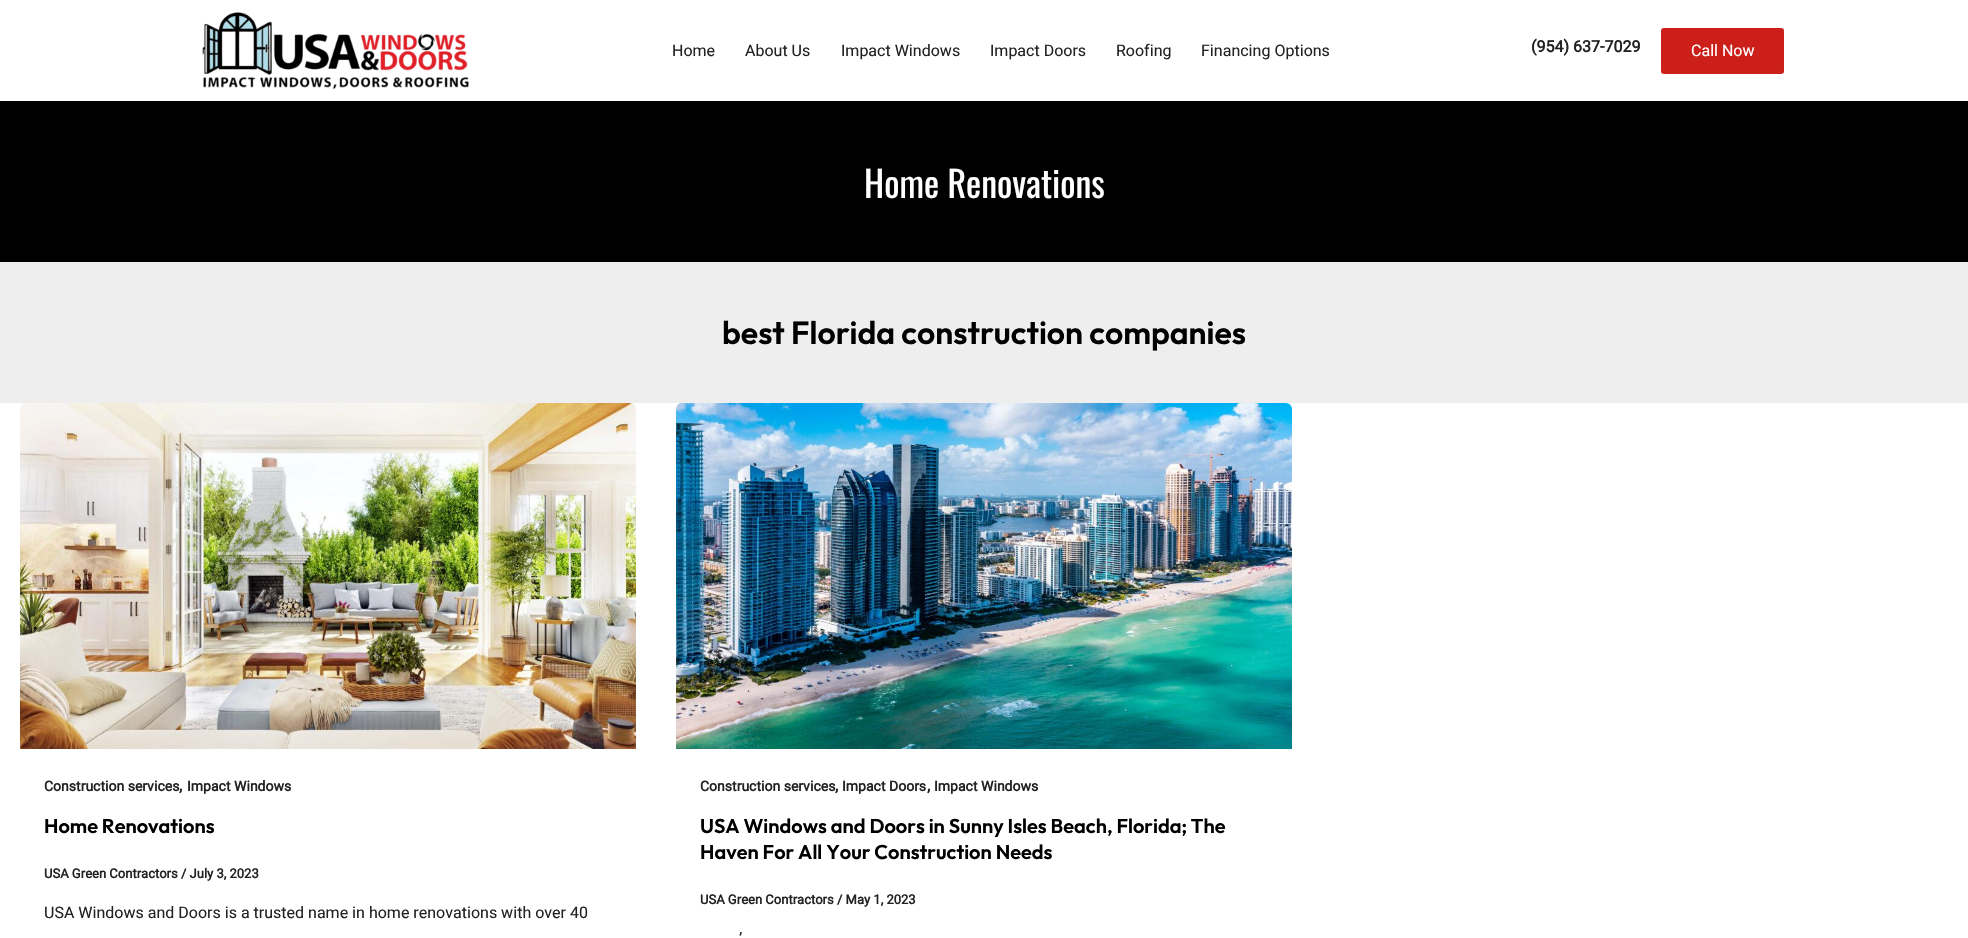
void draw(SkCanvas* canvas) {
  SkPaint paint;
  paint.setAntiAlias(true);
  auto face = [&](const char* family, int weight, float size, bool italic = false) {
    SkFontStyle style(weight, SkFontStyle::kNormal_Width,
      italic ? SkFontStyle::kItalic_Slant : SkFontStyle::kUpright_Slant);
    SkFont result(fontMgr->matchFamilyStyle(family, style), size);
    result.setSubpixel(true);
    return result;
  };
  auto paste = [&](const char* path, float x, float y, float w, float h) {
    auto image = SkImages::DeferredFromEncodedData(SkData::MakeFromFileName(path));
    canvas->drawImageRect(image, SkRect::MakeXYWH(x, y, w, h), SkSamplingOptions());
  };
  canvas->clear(0xffffffff);
  paste("img/1.png", 202, 12, 267, 77);
  paint.setColor(0xffcc1f1a);
  canvas->drawRoundRect(SkRect::MakeXYWH(1661, 28, 123, 46), 3, 3, paint);
  paint.setColor(0xff000000);
  canvas->drawRect(SkRect::MakeXYWH(0, 101, 1968, 161), paint);
  paint.setColor(0xffeeeeee);
  canvas->drawRect(SkRect::MakeXYWH(0, 262, 1968, 141), paint);
  paste("img/2.png", 20, 403, 616, 346);
  paste("img/3.png", 676, 403, 616, 346);
  auto f0 = face("Heebo", 400, 16);
  paint.setColor(0xff222222);
  {
    const struct { const char* s; float x, y; } items[] = {
      {"Home", 672, 56},
      {"About Us", 745, 56},
      {"Impact Windows", 841, 56},
      {"Impact Doors", 990, 56},
      {"Roofing", 1116, 56},
      {"Financing Options", 1201, 56},
    };
    for (auto [s, x, y] : items) {
      canvas->drawString(s, x, y, f0, paint);
    }
  }
  auto f1 = face("Heebo", 700, 16);
  canvas->drawString("(954) 637-7029", 1531, 52, f1, paint);
  paint.setColor(0xffffffff);
  canvas->drawString("Call Now", 1691, 56, f0, paint);
  auto f2 = face("Oswald", 400, 36);
  canvas->drawString("Home Renovations", 864, 198, f2, paint);
  auto f3 = face("Outfit", 600, 32);
  paint.setColor(0xff000000);
  canvas->drawString("best Florida construction companies", 722, 344, f3, paint);
  auto f4 = face("Heebo", 700, 14);
  paint.setColor(0xff222222);
  canvas->drawString("Construction services", 44, 791, f4, paint);
  canvas->drawString(",", 179, 791, f1, paint);
  canvas->drawString("Impact Windows", 187, 791, f4, paint);
  auto f5 = face("Outfit", 600, 20);
  paint.setColor(0xff000000);
  canvas->drawString("Home Renovations", 44, 833, f5, paint);
  auto f6 = face("Heebo", 700, 13);
  paint.setColor(0xff222222);
  canvas->drawString("USA Green Contractors / July 3, 2023", 44, 878, f6, paint);
  canvas->drawString("USA Windows and Doors is a trusted name in home renovations with over 40", 44, 918, f0, paint);
  canvas->drawString("Construction services", 700, 791, f4, paint);
  canvas->drawString(",", 835, 791, f1, paint);
  canvas->drawString("Impact Doors", 842, 791, f4, paint);
  canvas->drawString(",", 927, 791, f1, paint);
  canvas->drawString("Impact Windows", 934, 791, f4, paint);
  paint.setColor(0xff000000);
  canvas->drawString("USA Windows and Doors in Sunny Isles Beach, Florida; The", 700, 833, f5, paint);
  canvas->drawString("Haven For All Your Construction Needs", 700, 859, f5, paint);
  paint.setColor(0xff222222);
  canvas->drawString("USA Green Contractors / May 1, 2023", 700, 904, f6, paint);
  canvas->drawString("’", 739, 944, f0, paint);
}
